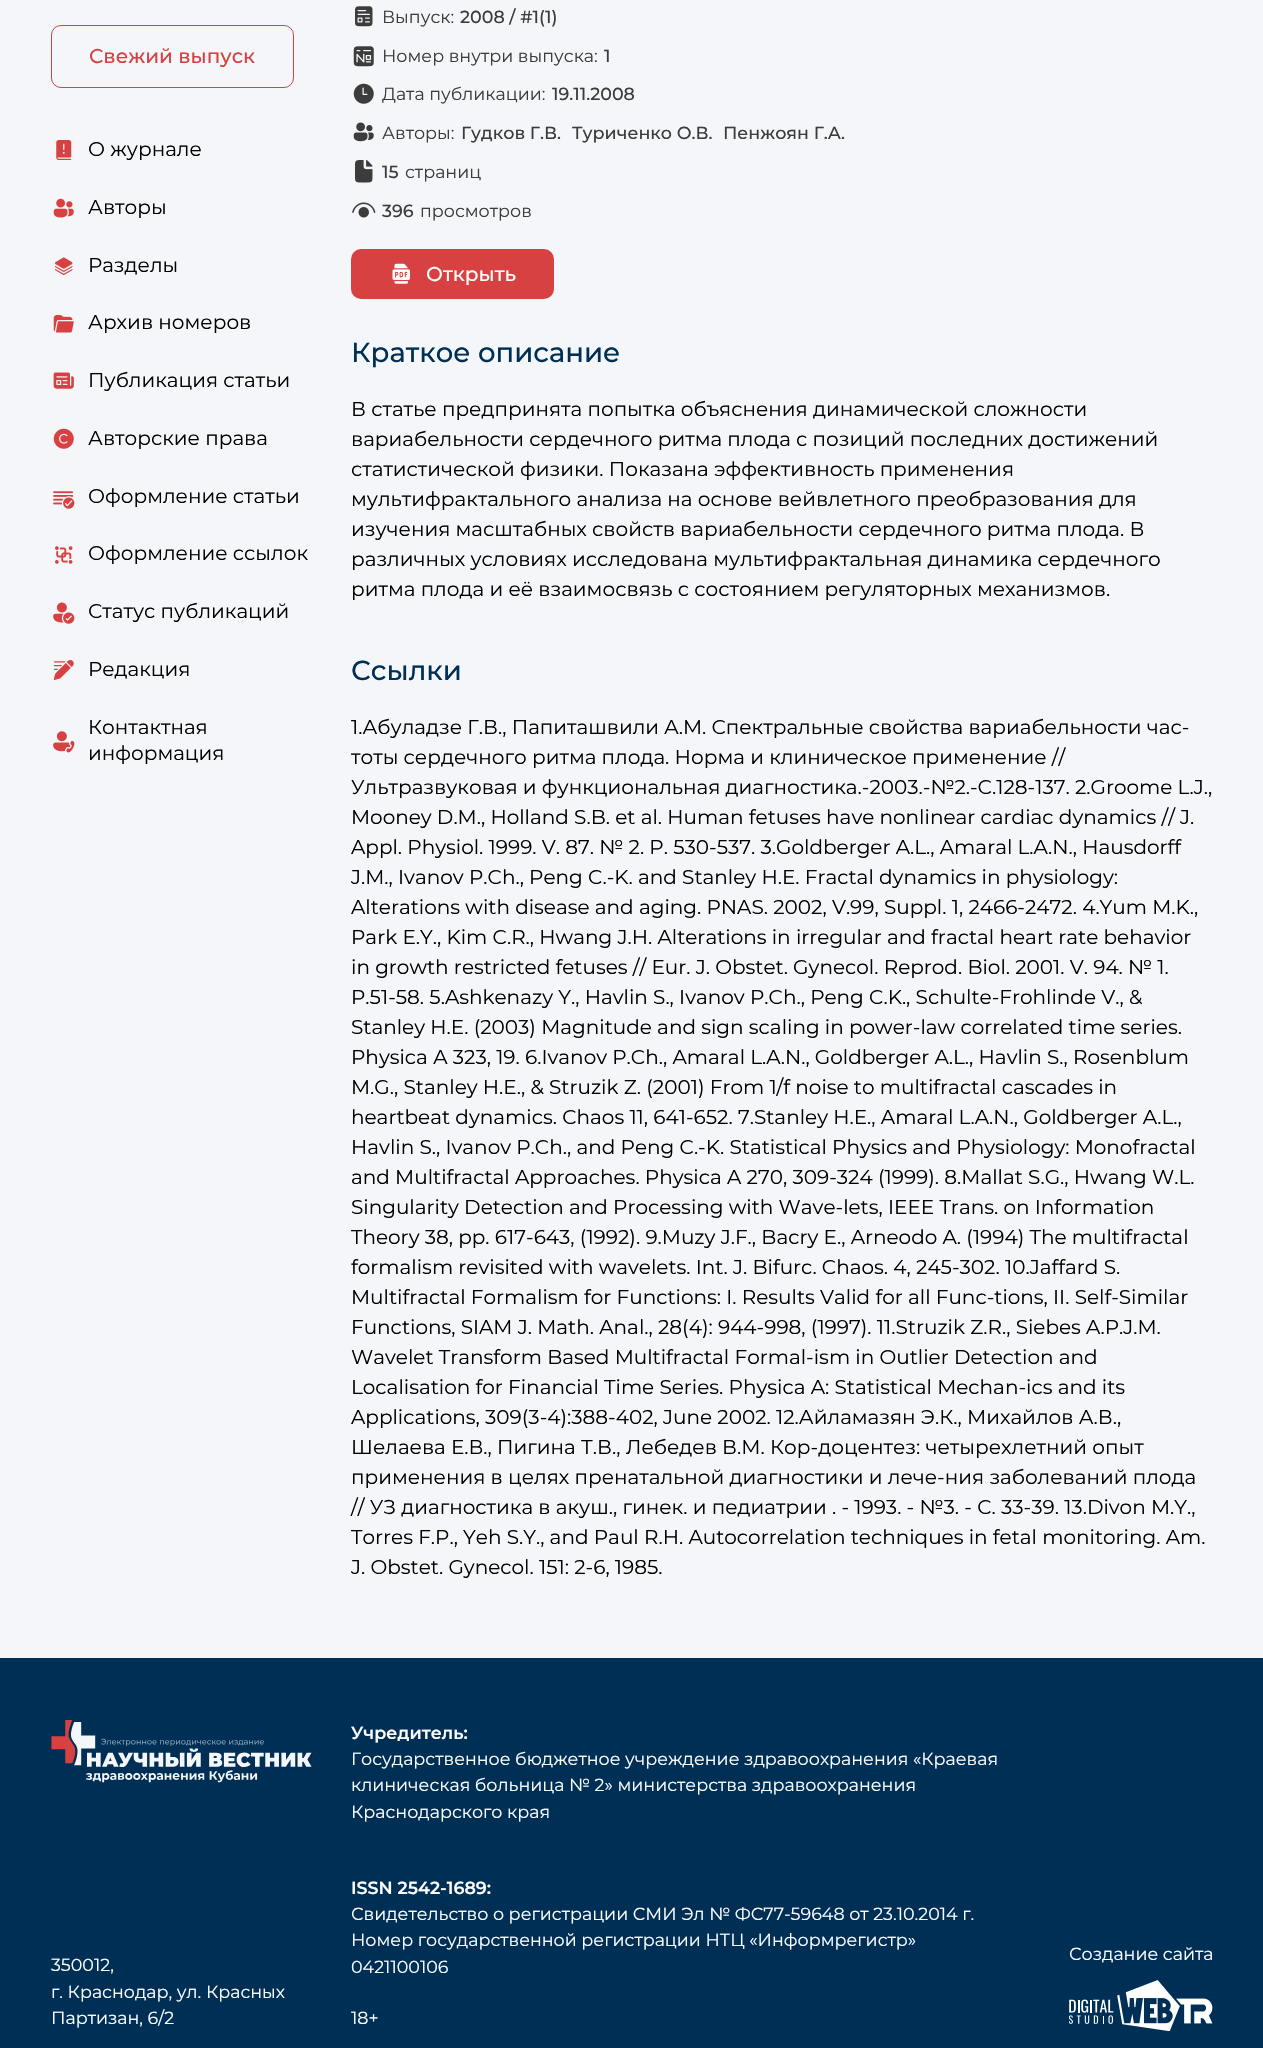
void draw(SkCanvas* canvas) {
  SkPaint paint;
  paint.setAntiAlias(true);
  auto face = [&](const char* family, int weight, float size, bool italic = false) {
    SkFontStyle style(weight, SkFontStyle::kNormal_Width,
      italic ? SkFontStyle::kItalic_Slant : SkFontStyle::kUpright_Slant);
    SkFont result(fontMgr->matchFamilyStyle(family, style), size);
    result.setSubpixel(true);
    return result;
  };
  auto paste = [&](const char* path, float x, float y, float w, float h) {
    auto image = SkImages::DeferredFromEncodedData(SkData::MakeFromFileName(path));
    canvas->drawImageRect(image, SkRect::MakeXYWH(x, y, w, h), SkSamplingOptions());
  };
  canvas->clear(0xfff4f6f9);
  paint.setStroke(true);
  paint.setStrokeWidth(1);
  paint.setColor(0xffd74141);
  canvas->drawRoundRect(SkRect::MakeXYWH(51.5f, 25.5f, 242, 62), 9.5f, 9.5f, paint);
  paste("img/1.png", 56, 140, 16, 20);
  paste("img/2.png", 53, 198, 21, 20);
  paste("img/3.png", 55, 257, 18, 18);
  paste("img/4.png", 53, 315, 21, 18);
  paste("img/5.png", 53, 372, 21, 17);
  paste("img/6.png", 53, 428, 21, 21);
  paste("img/7.png", 53, 491, 22, 18);
  paste("img/8.png", 55, 546, 18, 18);
  paste("img/9.png", 53, 602, 22, 22);
  paste("img/10.png", 53, 660, 21, 20);
  paste("img/11.png", 53, 731, 22, 22);
  paste("img/12.png", 355, 6, 18, 21);
  paste("img/13.png", 353, 46, 21, 21);
  paste("img/14.png", 353, 83, 21, 21);
  paste("img/15.png", 353, 122, 21, 20);
  paste("img/16.png", 355, 160, 18, 23);
  paste("img/17.png", 352, 202, 24, 16);
  paint.setStroke(false);
  canvas->drawRoundRect(SkRect::MakeXYWH(351, 249, 203, 50), 10, 10, paint);
  paste("img/18.png", 392, 263, 18, 21);
  paint.setColor(0xff002f55);
  canvas->drawRect(SkRect::MakeXYWH(0, 1658, 1263, 390), paint);
  paste("img/19.png", 1069, 1980, 144, 51);
  paste("img/20.png", 51, 1720, 261, 63);
  auto f0 = face("Montserrat", 500, 20);
  paint.setColor(0xffd74141);
  canvas->drawString("Свежий выпуск", 89, 63, f0, paint);
  auto f1 = face("Montserrat", 400, 20);
  paint.setColor(0xff000000);
  {
    const struct { const char* s; float x, y; } items[] = {
      {"О журнале", 88, 156},
      {"Авторы", 88, 214},
      {"Разделы", 88, 272},
      {"Архив номеров", 88, 329},
      {"Публикация статьи", 88, 387},
      {"Авторские права", 88, 445},
      {"Оформление статьи", 88, 503},
      {"Оформление ссылок", 88, 560},
      {"Статус публикаций", 88, 618},
      {"Редакция", 88, 676},
      {"Контактная", 88, 734},
      {"информация", 88, 760},
    };
    for (auto [s, x, y] : items) {
      canvas->drawString(s, x, y, f1, paint);
    }
  }
  auto f2 = face("Montserrat", 400, 17.5f);
  paint.setColor(0xff3c3c3c);
  canvas->drawString("Выпуск:", 382, 23, f2, paint);
  auto f3 = face("Montserrat", 500, 17.5f);
  canvas->drawString("2008 / #1(1)", 460, 23, f3, paint);
  canvas->drawString("Номер внутри выпуска:", 382, 62, f2, paint);
  canvas->drawString("1", 604, 62, f3, paint);
  canvas->drawString("Дата публикации:", 382, 100, f2, paint);
  canvas->drawString("19.11.2008", 552, 100, f3, paint);
  canvas->drawString("Авторы:", 382, 139, f2, paint);
  {
    const struct { const char* s; float x, y; } items[] = {
      {"Гудков Г.В.", 461, 139},
      {"Туриченко О.В.", 572, 139},
      {"Пенжоян Г.А.", 723, 139},
      {"15", 382, 178},
    };
    for (auto [s, x, y] : items) {
      canvas->drawString(s, x, y, f3, paint);
    }
  }
  canvas->drawString("страниц", 405, 178, f2, paint);
  canvas->drawString("396", 382, 217, f3, paint);
  canvas->drawString("просмотров", 420, 217, f2, paint);
  paint.setColor(0xffffffff);
  canvas->drawString("Открыть", 426, 281, f0, paint);
  auto f4 = face("Montserrat", 500, 27.5f);
  paint.setColor(0xff002f55);
  canvas->drawString("Краткое описание", 351, 362, f4, paint);
  paint.setColor(0xff000000);
  {
    const struct { const char* s; float x, y; } items[] = {
      {"В статье предпринята попытка объяснения динамической сложности", 351, 416},
      {"вариабельности сердечного ритма плода с позиций последних достижений", 351, 446},
      {"статистической физики. Показана эффективность применения", 351, 476},
      {"мультифрактального анализа на основе вейвлетного преобразования для", 351, 506},
      {"изучения масштабных свойств вариабельности сердечного ритма плода. В", 351, 536},
      {"различных условиях исследована мультифрактальная динамика сердечного", 351, 566},
      {"ритма плода и её взаимосвязь с состоянием регуляторных механизмов.", 351, 596},
    };
    for (auto [s, x, y] : items) {
      canvas->drawString(s, x, y, f1, paint);
    }
  }
  paint.setColor(0xff002f55);
  canvas->drawString("Ссылки", 351, 680, f4, paint);
  paint.setColor(0xff000000);
  {
    const struct { const char* s; float x, y; } items[] = {
      {"1.Абуладзе Г.В., Папиташвили A.M. Спектральные свойства вариабельности час-", 351, 734},
      {"тоты сердечного ритма плода. Норма и клиническое применение //", 351, 764},
      {"Ультразвуковая и функциональная диагностика.-2003.-№2.-С.128-137. 2.Groome L.J.,", 351, 794},
      {"Mooney D.M., Holland S.B. et al. Human fetuses have nonlinear cardiac dynamics // J.", 351, 824},
      {"Appl. Physiol. 1999. V. 87. № 2. P. 530-537. 3.Goldberger A.L., Amaral L.A.N., Hausdorff", 351, 854},
      {"J.M., Ivanov P.Ch., Peng C.-K. and Stanley H.E. Fractal dynamics in physiology:", 351, 884},
      {"Alterations with disease and aging. PNAS. 2002, V.99, Suppl. 1, 2466-2472. 4.Yum M.K.,", 351, 914},
      {"Park E.Y., Kim C.R., Hwang J.H. Alterations in irregular and fractal heart rate behavior", 351, 944},
      {"in growth restricted fetuses // Eur. J. Obstet. Gynecol. Reprod. Biol. 2001. V. 94. № 1.", 351, 974},
      {"P.51-58. 5.Ashkenazy Y., Havlin S., Ivanov P.Ch., Peng C.K., Schulte-Frohlinde V., &", 351, 1004},
      {"Stanley H.E. (2003) Magnitude and sign scaling in power-law correlated time series.", 351, 1034},
      {"Physica A 323, 19. 6.Ivanov P.Ch., Amaral L.A.N., Goldberger A.L., Havlin S., Rosenblum", 351, 1064},
      {"M.G., Stanley H.E., & Struzik Z. (2001) From 1/f noise to multifractal cascades in", 351, 1094},
      {"heartbeat dynamics. Chaos 11, 641-652. 7.Stanley H.E., Amaral L.A.N., Goldberger A.L.,", 351, 1124},
      {"Havlin S., Ivanov P.Ch., and Peng C.-K. Statistical Physics and Physiology: Monofractal", 351, 1154},
      {"and Multifractal Approaches. Physica A 270, 309-324 (1999). 8.Mallat S.G., Hwang W.L.", 351, 1184},
      {"Singularity Detection and Processing with Wave-lets, IEEE Trans. on Information", 351, 1214},
      {"Theory 38, pp. 617-643, (1992). 9.Muzy J.F., Bacry E., Arneodo A. (1994) The multifractal", 351, 1244},
      {"formalism revisited with wavelets. Int. J. Bifurc. Chaos. 4, 245-302. 10.Jaffard S.", 351, 1274},
      {"Multifractal Formalism for Functions: I. Results Valid for all Func-tions, II. Self-Similar", 351, 1304},
      {"Functions, SIAM J. Math. Anal., 28(4): 944-998, (1997). 11.Struzik Z.R., Siebes A.P.J.M.", 351, 1334},
      {"Wavelet Transform Based Multifractal Formal-ism in Outlier Detection and", 351, 1364},
      {"Localisation for Financial Time Series. Physica A: Statistical Mechan-ics and its", 351, 1394},
      {"Applications, 309(3-4):388-402, June 2002. 12.Айламазян Э.К., Михайлов А.В.,", 351, 1424},
      {"Шелаева Е.В., Пигина Т.В., Лебедев В.М. Кор-доцентез: четырехлетний опыт", 351, 1454},
      {"применения в целях пренатальной диагностики и лече-ния заболеваний плода", 351, 1484},
      {"// УЗ диагностика в акуш., гинек. и педиатрии . - 1993. - №3. - C. 33-39. 13.Divon M.Y.,", 351, 1514},
      {"Torres F.P., Yeh S.Y., and Paul R.H. Autocorrelation techniques in fetal monitoring. Am.", 351, 1544},
      {"J. Obstet. Gynecol. 151: 2-6, 1985.", 351, 1574},
    };
    for (auto [s, x, y] : items) {
      canvas->drawString(s, x, y, f1, paint);
    }
  }
  auto f5 = face("Montserrat", 600, 17.5f);
  paint.setColor(0xffffffff);
  canvas->drawString("Учредитель:", 351, 1739, f5, paint);
  {
    const struct { const char* s; float x, y; } items[] = {
      {"Государственное бюджетное учреждение здравоохранения «Краевая", 351, 1765},
      {"клиническая больница № 2» министерства здравоохранения", 351, 1791},
      {"Краснодарского края", 351, 1818},
    };
    for (auto [s, x, y] : items) {
      canvas->drawString(s, x, y, f2, paint);
    }
  }
  canvas->drawString("ISSN 2542-1689:", 351, 1894, f5, paint);
  {
    const struct { const char* s; float x, y; } items[] = {
      {"Свидетельство о регистрации СМИ Эл № ФС77-59648 от 23.10.2014 г.", 351, 1920},
      {"Номер государственной регистрации НТЦ «Информрегистр»", 351, 1946},
      {"0421100106", 351, 1973},
      {"18+", 351, 2024},
      {"Создание сайта", 1069, 1960},
      {"350012,", 51, 1971},
      {"г. Краснодар, ул. Красных", 51, 1998},
      {"Партизан, 6/2", 51, 2024},
    };
    for (auto [s, x, y] : items) {
      canvas->drawString(s, x, y, f2, paint);
    }
  }
}
